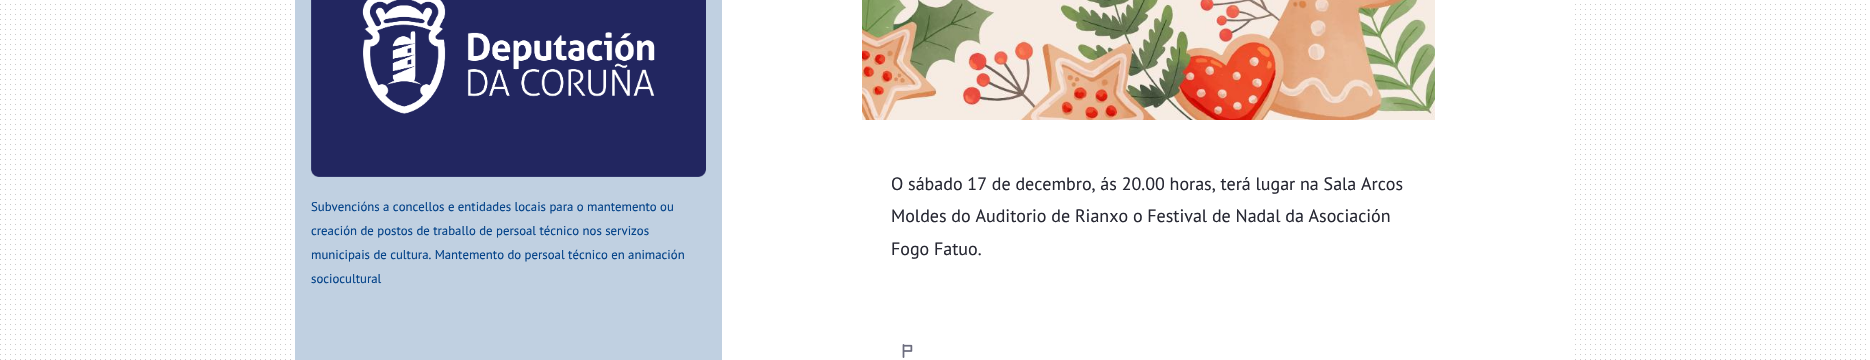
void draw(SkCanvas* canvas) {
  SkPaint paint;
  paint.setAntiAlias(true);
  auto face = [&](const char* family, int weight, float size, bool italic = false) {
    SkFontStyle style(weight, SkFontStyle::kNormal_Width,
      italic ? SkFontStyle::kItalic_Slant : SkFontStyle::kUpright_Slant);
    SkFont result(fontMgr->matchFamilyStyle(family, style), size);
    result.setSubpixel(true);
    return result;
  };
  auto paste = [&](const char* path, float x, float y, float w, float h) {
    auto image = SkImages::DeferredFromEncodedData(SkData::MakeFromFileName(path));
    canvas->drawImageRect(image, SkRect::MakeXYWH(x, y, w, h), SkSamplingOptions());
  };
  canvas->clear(0xffffffff);
  paste("img/1.png", 0, 4, 1866, 356);
  paint.setColor(0xffffffff);
  canvas->drawRect(SkRect::MakeXYWH(725, 4, 846, 356), paint);
  paint.setColor(0xffc0d0e1);
  canvas->drawRect(SkRect::MakeXYWH(295, 0, 427, 360), paint);
  paste("img/2.png", 311, 0, 395, 177);
  paste("img/3.png", 862, 0, 573, 120);
  paste("img/4.png", 902, 344, 11, 14);
  auto f0 = face("PT Sans", 400, 12.8f);
  paint.setColor(0xff044389);
  {
    const struct { const char* s; float x, y; } items[] = {
      {"Subvencións a concellos e entidades locais para o mantemento ou", 311, 211},
      {"creación de postos de traballo de persoal técnico nos servizos", 311, 235},
      {"municipais de cultura. Mantemento do persoal técnico en animación", 311, 259},
      {"sociocultural", 311, 283},
    };
    for (auto [s, x, y] : items) {
      canvas->drawString(s, x, y, f0, paint);
    }
  }
  auto f1 = face("PT Sans", 400, 18);
  paint.setColor(0xff272833);
  {
    const struct { const char* s; float x, y; } items[] = {
      {"O sábado 17 de decembro, ás 20.00 horas, terá lugar na Sala Arcos", 891, 190},
      {"Moldes do Auditorio de Rianxo o Festival de Nadal da Asociación", 891, 222},
      {"Fogo Fatuo.", 891, 255},
    };
    for (auto [s, x, y] : items) {
      canvas->drawString(s, x, y, f1, paint);
    }
  }
}
